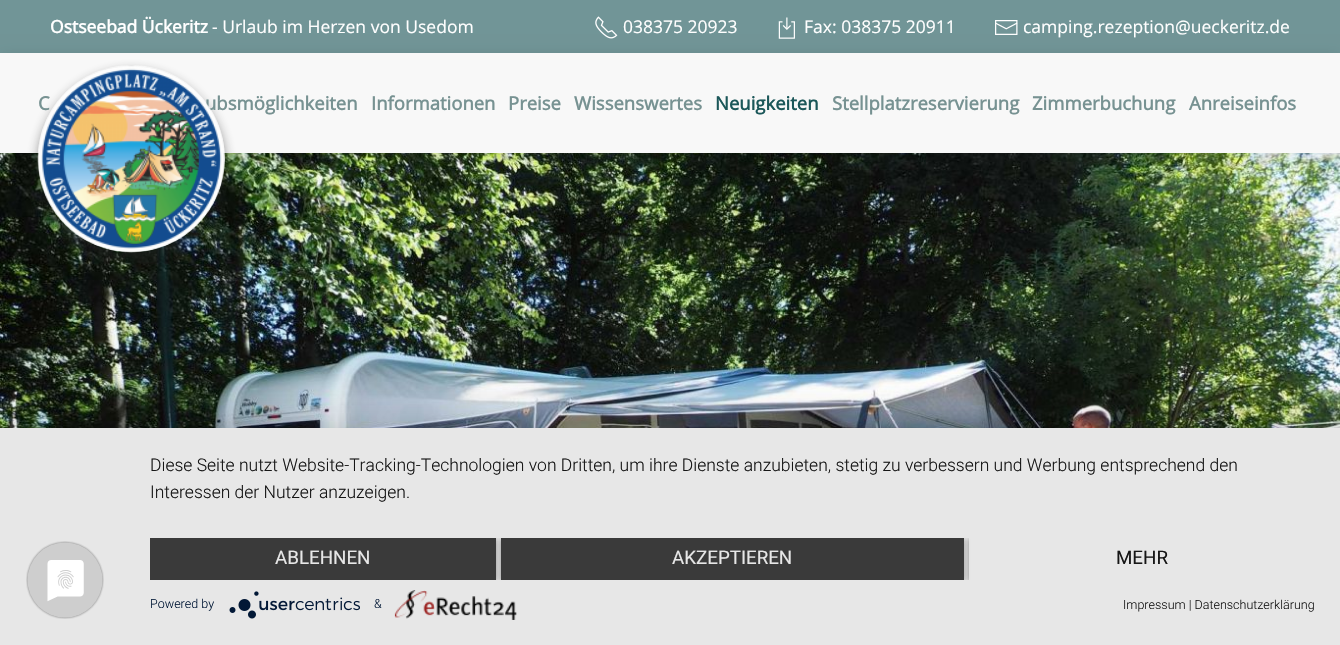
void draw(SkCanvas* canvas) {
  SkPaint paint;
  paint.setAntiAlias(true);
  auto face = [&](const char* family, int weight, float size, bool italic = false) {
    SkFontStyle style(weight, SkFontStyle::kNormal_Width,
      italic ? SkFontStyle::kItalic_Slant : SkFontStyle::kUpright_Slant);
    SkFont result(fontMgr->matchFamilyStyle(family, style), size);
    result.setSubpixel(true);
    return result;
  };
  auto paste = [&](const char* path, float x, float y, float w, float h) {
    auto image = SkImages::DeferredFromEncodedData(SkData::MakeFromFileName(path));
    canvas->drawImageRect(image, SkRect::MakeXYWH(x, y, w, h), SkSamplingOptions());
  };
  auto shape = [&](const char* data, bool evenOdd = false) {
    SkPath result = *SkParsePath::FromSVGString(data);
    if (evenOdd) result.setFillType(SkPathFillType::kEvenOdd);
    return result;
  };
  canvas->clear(0xff719597);
  paste("img/1.png", 595, 16, 23, 23);
  paste("img/2.png", 778, 17, 17, 22);
  paste("img/3.png", 995, 20, 23, 15);
  paste("img/5.png", 0, 153, 1340, 275);
  paint.setColor(0x17000000);
  paint.setMaskFilter(SkMaskFilter::MakeBlur(kNormal_SkBlurStyle, 7));
  canvas->drawRect(SkRect::MakeXYWH(0, 55, 1340, 100), paint);
  paint.setMaskFilter(nullptr);
  paint.setColor(0xfff8f8f8);
  canvas->drawRect(SkRect::MakeXYWH(0, 53, 1340, 100), paint);
  canvas->save();
  canvas->clipPath(shape("M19 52H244V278H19ZM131.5 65C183 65 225 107 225 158.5V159.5C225 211 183 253 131.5 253C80 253 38 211 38 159.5V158.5C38 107 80 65 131.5 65Z", true), true);
  paint.setColor(0x80222222);
  paint.setMaskFilter(SkMaskFilter::MakeBlur(kNormal_SkBlurStyle, 6));
  canvas->drawRoundRect(SkRect::MakeXYWH(38, 71, 187, 188), 93.5f, 93.5f, paint);
  paint.setMaskFilter(nullptr);
  canvas->restore();
  paint.setColor(0x4d000000);
  paint.setMaskFilter(SkMaskFilter::MakeBlur(kNormal_SkBlurStyle, 22.5f));
  canvas->drawRect(SkRect::MakeXYWH(0, 435, 1340, 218), paint);
  paint.setMaskFilter(nullptr);
  paint.setColor(0xffe7e7e7);
  canvas->drawRect(SkRect::MakeXYWH(0, 428, 1340, 217), paint);
  paste("img/6.png", 26, 541, 78, 78);
  canvas->save();
  canvas->clipRect(SkRect::MakeXYWH(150, 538, 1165, 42));
  paint.setColor(0x66000000);
  paint.setMaskFilter(SkMaskFilter::MakeBlur(kNormal_SkBlurStyle, 2.5f));
  canvas->drawRect(SkRect::MakeXYWH(150, 539, 346, 42), paint);
  paint.setMaskFilter(nullptr);
  canvas->restore();
  paint.setColor(0xff3a3a3a);
  canvas->drawRect(SkRect::MakeXYWH(150, 538, 346, 42), paint);
  canvas->save();
  canvas->clipRect(SkRect::MakeXYWH(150, 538, 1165, 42));
  paint.setColor(0x66000000);
  paint.setMaskFilter(SkMaskFilter::MakeBlur(kNormal_SkBlurStyle, 2.5f));
  canvas->drawRect(SkRect::MakeXYWH(501, 539, 463, 42), paint);
  paint.setMaskFilter(nullptr);
  canvas->restore();
  paint.setColor(0xff3a3a3a);
  canvas->drawRect(SkRect::MakeXYWH(501, 538, 463, 42), paint);
  canvas->save();
  canvas->clipRect(SkRect::MakeXYWH(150, 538, 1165, 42));
  canvas->clipRect(SkRect::MakeXYWH(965, 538, 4, 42));
  paint.setColor(0x66000000);
  paint.setMaskFilter(SkMaskFilter::MakeBlur(kNormal_SkBlurStyle, 2.5f));
  canvas->drawRect(SkRect::MakeXYWH(969, 539, 346, 42), paint);
  paint.setMaskFilter(nullptr);
  canvas->restore();
  paste("img/7.png", 229, 591, 131, 28);
  paste("img/8.png", 394, 590, 123, 30);
  auto f0 = face("Open Sans", 700, 17.5f);
  paint.setColor(0xffffffff);
  canvas->drawString("Ostseebad Ückeritz", 50, 33, f0, paint);
  auto f1 = face("Open Sans", 400, 17.5f);
  {
    const struct { const char* s; float x, y; } items[] = {
      {"- Urlaub im Herzen von Usedom", 212, 33},
      {"038375 20923", 623, 33},
      {"Fax: 038375 20911", 804, 33},
      {"camping.rezeption@ueckeritz.de", 1023, 33},
    };
    for (auto [s, x, y] : items) {
      canvas->drawString(s, x, y, f1, paint);
    }
  }
  auto f2 = face("Open Sans", 700, 18.5f);
  paint.setColor(0xff779292);
  canvas->drawString("C", 38, 110, f2, paint);
  canvas->drawString("ubsmöglichkeiten", 205, 110, f2, paint);
  paste("img/4.png", 37, 65, 188, 188);
  {
    const struct { const char* s; float x, y; } items[] = {
      {"Informationen", 371, 110},
      {"Preise", 508, 110},
      {"Wissenswertes", 574, 110},
    };
    for (auto [s, x, y] : items) {
      canvas->drawString(s, x, y, f2, paint);
    }
  }
  paint.setColor(0xff1b5759);
  canvas->drawString("Neuigkeiten", 715, 110, f2, paint);
  paint.setColor(0xff779292);
  {
    const struct { const char* s; float x, y; } items[] = {
      {"Stellplatzreservierung", 832, 110},
      {"Zimmerbuchung", 1032, 110},
      {"Anreiseinfos", 1189, 110},
    };
    for (auto [s, x, y] : items) {
      canvas->drawString(s, x, y, f2, paint);
    }
  }
  auto f3 = face("Roboto", 300, 17.5f);
  paint.setColor(0xff161616);
  canvas->drawString("Diese Seite nutzt Website-Tracking-Technologien von Dritten, um ihre Dienste anzubieten, stetig zu verbessern und Werbung entsprechend den", 150, 471, f3, paint);
  canvas->drawString("Interessen der Nutzer anzuzeigen.", 150, 498, f3, paint);
  auto f4 = face("Roboto", 400, 18.75f);
  paint.setColor(0xffe7e7e7);
  canvas->drawString("ABLEHNEN", 275, 564, f4, paint);
  canvas->drawString("AKZEPTIEREN", 672, 564, f4, paint);
  paint.setColor(0xff161616);
  canvas->drawString("MEHR", 1116, 564, f4, paint);
  auto f5 = face("Roboto", 300, 12.5f);
  paint.setColor(0xff021836);
  canvas->drawString("Powered by", 150, 608, f5, paint);
  canvas->drawString("&", 374, 608, f5, paint);
  paint.setColor(0xff161616);
  canvas->drawString("Impressum | Datenschutzerklärung", 1123, 609, f5, paint);
}
